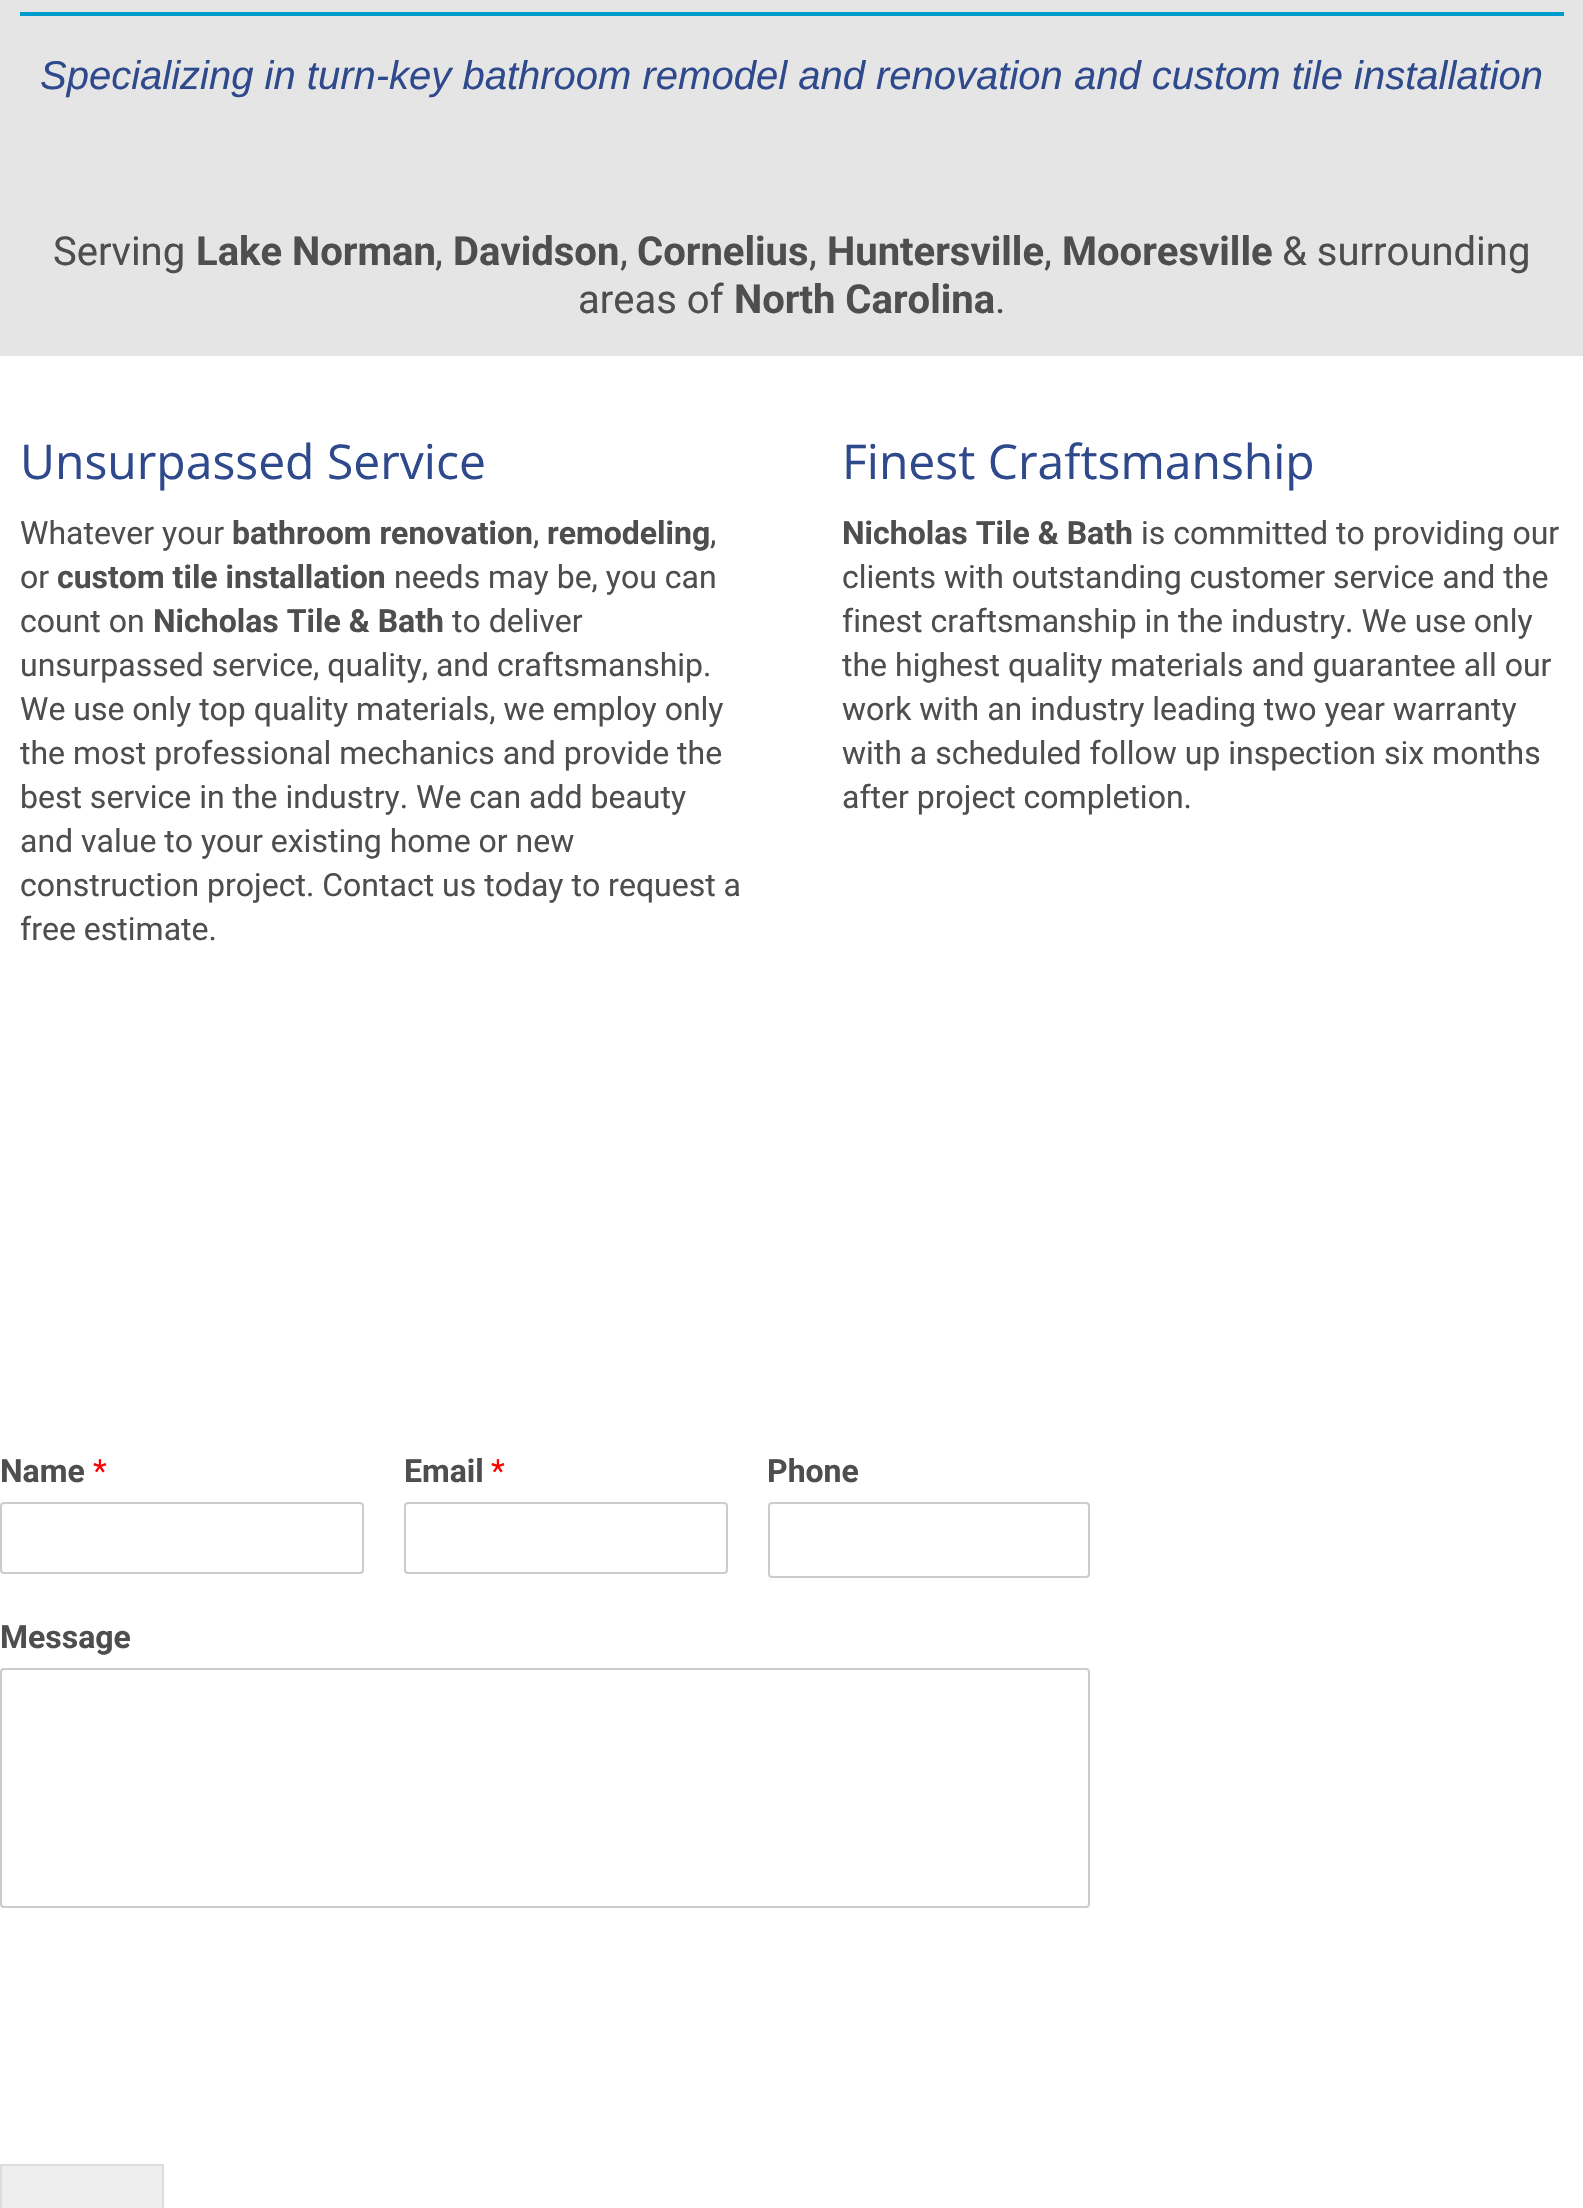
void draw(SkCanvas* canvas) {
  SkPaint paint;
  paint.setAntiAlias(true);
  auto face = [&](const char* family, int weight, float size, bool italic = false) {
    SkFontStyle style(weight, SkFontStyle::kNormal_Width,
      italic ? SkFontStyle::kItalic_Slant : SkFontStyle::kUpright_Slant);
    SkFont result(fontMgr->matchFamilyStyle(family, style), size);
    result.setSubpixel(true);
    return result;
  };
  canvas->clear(0xffffffff);
  paint.setColor(0xffe5e5e5);
  canvas->drawRect(SkRect::MakeXYWH(0, 0, 1583, 356), paint);
  paint.setColor(0xff019ccc);
  canvas->drawRect(SkRect::MakeXYWH(20, 12, 1544, 4), paint);
  paint.setStroke(true);
  paint.setStrokeWidth(2);
  paint.setColor(0xffcccccc);
  canvas->drawRoundRect(SkRect::MakeXYWH(1, 1503, 362, 70), 3, 3, paint);
  canvas->drawRoundRect(SkRect::MakeXYWH(405, 1503, 322, 70), 3, 3, paint);
  canvas->drawRoundRect(SkRect::MakeXYWH(769, 1503, 320, 74), 3, 3, paint);
  canvas->drawRoundRect(SkRect::MakeXYWH(1, 1669, 1088, 238), 3, 3, paint);
  paint.setStroke(false);
  paint.setColor(0xffeeeeee);
  canvas->drawRect(SkRect::MakeXYWH(1, 2165, 162, 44), paint);
  paint.setStroke(true);
  paint.setColor(0xffdddddd);
  canvas->drawRect(SkRect::MakeXYWH(1, 2165, 162, 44), paint);
  auto f0 = face("Liberation Sans", 400, 40, true);
  paint.setStroke(false);
  paint.setColor(0xff2e498c);
  canvas->drawString("Specializing in turn-key bathroom remodel and renovation and custom tile installation", 40, 89, f0, paint);
  auto f1 = face("Roboto", 400, 40);
  paint.setColor(0xff4e4e4e);
  canvas->drawString("Serving", 53, 265, f1, paint);
  auto f2 = face("Roboto", 700, 40);
  canvas->drawString("Lake Norman", 196, 265, f2, paint);
  canvas->drawString(",", 435, 265, f1, paint);
  canvas->drawString("Davidson", 453, 265, f2, paint);
  canvas->drawString(",", 620, 265, f1, paint);
  canvas->drawString("Cornelius", 637, 265, f2, paint);
  canvas->drawString(",", 809, 265, f1, paint);
  canvas->drawString("Huntersville", 827, 265, f2, paint);
  canvas->drawString(",", 1044, 265, f1, paint);
  canvas->drawString("Mooresville", 1062, 265, f2, paint);
  canvas->drawString("& surrounding", 1282, 265, f1, paint);
  canvas->drawString("areas of", 578, 313, f1, paint);
  canvas->drawString("North Carolina", 734, 313, f2, paint);
  canvas->drawString(".", 995, 313, f1, paint);
  auto f3 = face("Open Sans", 400, 48);
  paint.setColor(0xff2e498c);
  canvas->drawString("Unsurpassed Service", 20, 479, f3, paint);
  auto f4 = face("Roboto", 400, 32);
  paint.setColor(0xff4e4e4e);
  canvas->drawString("Whatever your", 20, 544, f4, paint);
  auto f5 = face("Roboto", 700, 32);
  canvas->drawString("bathroom renovation", 232, 544, f5, paint);
  canvas->drawString(",", 533, 544, f4, paint);
  canvas->drawString("remodeling", 547, 544, f5, paint);
  canvas->drawString(",", 710, 544, f4, paint);
  canvas->drawString("or", 20, 588, f4, paint);
  canvas->drawString("custom tile installation", 57, 588, f5, paint);
  canvas->drawString("needs may be, you can", 394, 588, f4, paint);
  canvas->drawString("count on", 20, 632, f4, paint);
  canvas->drawString("Nicholas Tile & Bath", 153, 632, f5, paint);
  {
    const struct { const char* s; float x, y; } items[] = {
      {"to deliver", 452, 632},
      {"unsurpassed service, quality, and craftsmanship.", 20, 676},
      {"We use only top quality materials, we employ only", 20, 720},
      {"the most professional mechanics and provide the", 20, 764},
      {"best service in the industry. We can add beauty", 20, 808},
      {"and value to your existing home or new", 20, 852},
      {"construction project. Contact us today to request a", 20, 896},
      {"free estimate.", 20, 940},
    };
    for (auto [s, x, y] : items) {
      canvas->drawString(s, x, y, f4, paint);
    }
  }
  paint.setColor(0xff2e498c);
  canvas->drawString("Finest Craftsmanship", 842, 479, f3, paint);
  paint.setColor(0xff4e4e4e);
  canvas->drawString("Nicholas Tile & Bath", 842, 544, f5, paint);
  {
    const struct { const char* s; float x, y; } items[] = {
      {"is committed to providing our", 1141, 544},
      {"clients with outstanding customer service and the", 842, 588},
      {"finest craftsmanship in the industry. We use only", 842, 632},
      {"the highest quality materials and guarantee all our", 842, 676},
      {"work with an industry leading two year warranty", 842, 720},
      {"with a scheduled follow up inspection six months", 842, 764},
      {"after project completion.", 842, 808},
    };
    for (auto [s, x, y] : items) {
      canvas->drawString(s, x, y, f4, paint);
    }
  }
  canvas->drawString("Name", 0, 1482, f5, paint);
  paint.setColor(0xffff0000);
  canvas->drawString("*", 93, 1482, f4, paint);
  paint.setColor(0xff4e4e4e);
  canvas->drawString("Email", 404, 1482, f5, paint);
  paint.setColor(0xffff0000);
  canvas->drawString("*", 491, 1482, f4, paint);
  paint.setColor(0xff4e4e4e);
  canvas->drawString("Phone", 767, 1482, f5, paint);
  canvas->drawString("Message", 0, 1648, f5, paint);
}
